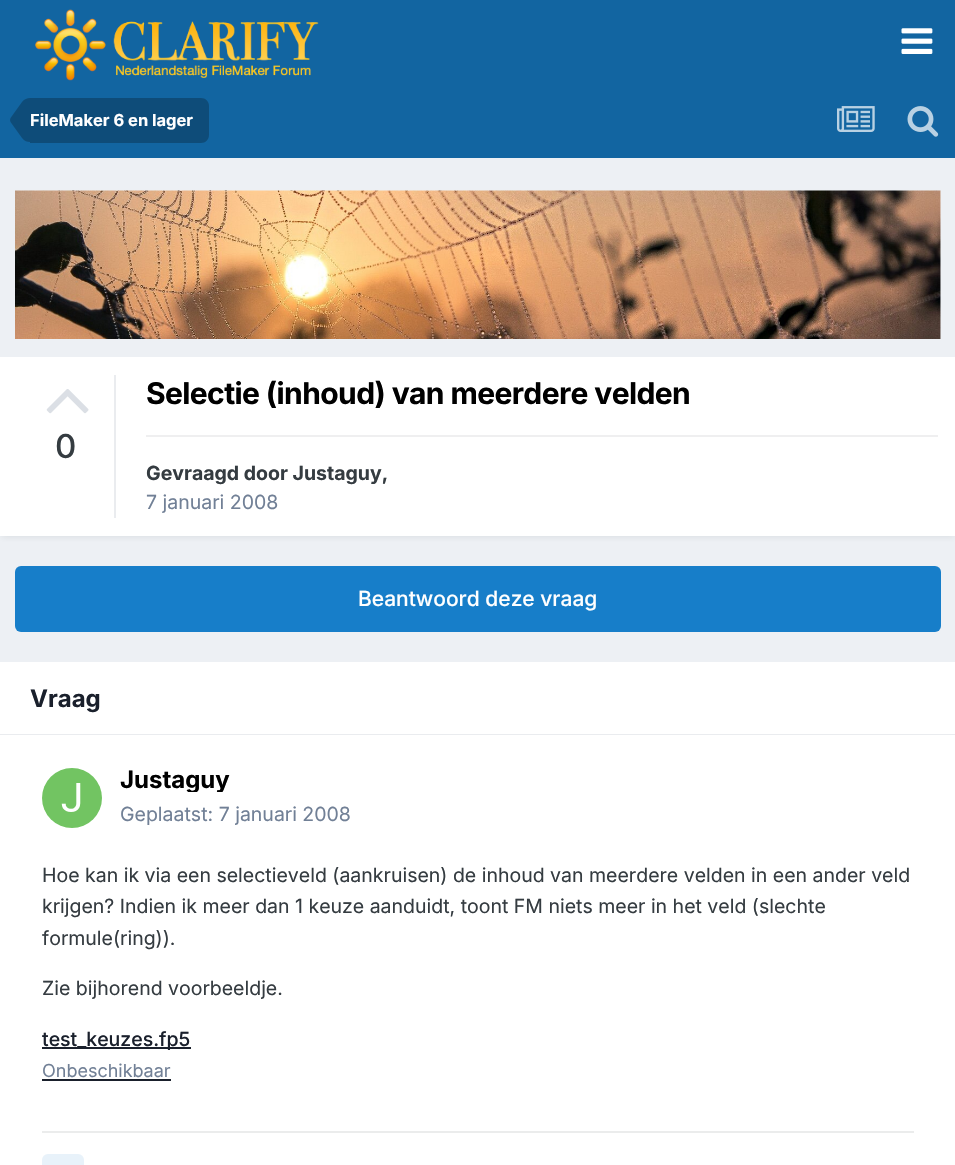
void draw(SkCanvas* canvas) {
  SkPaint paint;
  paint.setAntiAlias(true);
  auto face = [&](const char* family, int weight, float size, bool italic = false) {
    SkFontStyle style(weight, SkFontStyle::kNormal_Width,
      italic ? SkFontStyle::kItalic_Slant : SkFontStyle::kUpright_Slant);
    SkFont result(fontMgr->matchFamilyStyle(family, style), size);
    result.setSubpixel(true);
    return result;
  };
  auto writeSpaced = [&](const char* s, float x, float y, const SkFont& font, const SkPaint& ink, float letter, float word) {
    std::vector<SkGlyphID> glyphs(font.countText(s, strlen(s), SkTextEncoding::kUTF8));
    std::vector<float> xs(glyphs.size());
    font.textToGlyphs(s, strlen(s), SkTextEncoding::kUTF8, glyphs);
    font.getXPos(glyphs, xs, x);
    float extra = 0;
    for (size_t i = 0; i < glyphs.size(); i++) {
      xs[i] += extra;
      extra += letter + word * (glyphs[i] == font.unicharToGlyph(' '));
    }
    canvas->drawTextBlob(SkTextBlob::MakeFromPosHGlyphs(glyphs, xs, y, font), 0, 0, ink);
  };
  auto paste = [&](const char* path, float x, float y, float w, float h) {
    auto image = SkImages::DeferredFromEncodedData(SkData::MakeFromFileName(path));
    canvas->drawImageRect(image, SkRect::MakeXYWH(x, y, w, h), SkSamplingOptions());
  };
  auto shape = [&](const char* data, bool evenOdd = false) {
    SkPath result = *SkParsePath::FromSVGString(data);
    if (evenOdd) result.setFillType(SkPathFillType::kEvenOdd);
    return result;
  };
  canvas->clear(0xffedf0f4);
  paint.setColor(0xff1265a1);
  canvas->drawRect(SkRect::MakeXYWH(0, 0, 955, 158), paint);
  paste("img/1.png", 35, 9, 284, 72);
  paste("img/2.png", 901, 28, 32, 26);
  paint.setColor(0xff0e4c79);
  canvas->drawPath(shape("M30 98H201C205.5 98 209 101.5 209 106V135C209 139.5 205.5 143 201 143H30Z"), paint);
  canvas->drawPath(shape("M30 120V142C27 142 24.5 141 22 138L10.5 122L10 120ZM30 120H10L10.5 118L22 102C24.5 99 27 98 30 98Z"), paint);
  paste("img/3.png", 837, 106, 38, 26);
  paste("img/4.png", 907, 106, 32, 31);
  paint.setColor(0xfff7fafc);
  canvas->drawRect(SkRect::MakeXYWH(940, 191, 1, 148), paint);
  paste("img/5.png", 15, 190, 926, 149);
  paint.setColor(0x1a2d3748);
  paint.setMaskFilter(SkMaskFilter::MakeBlur(kNormal_SkBlurStyle, 3));
  canvas->drawRect(SkRect::MakeXYWH(2, 362, 952, 175), paint);
  paint.setMaskFilter(nullptr);
  paint.setColor(0xffffffff);
  canvas->drawRect(SkRect::MakeXYWH(0, 357, 955, 179), paint);
  paint.setColor(0xffeaecef);
  canvas->drawRect(SkRect::MakeXYWH(114, 375, 2, 143), paint);
  paste("img/6.png", 46, 389, 43, 25);
  paint.setColor(0xffefeff0);
  canvas->drawRect(SkRect::MakeXYWH(146, 435, 792, 2), paint);
  paint.setColor(0xff177ec9);
  canvas->drawRoundRect(SkRect::MakeXYWH(15, 566, 926, 66), 6, 6, paint);
  {
    const struct { float x, y, w, h; SkColor color; } items[] = {
      {0, 662, 955, 72, 0xffffffff},
      {0, 734, 955, 1, 0xffeaecef},
      {0, 735, 955, 430, 0xffffffff},
    };
    for (auto [x, y, w, h, color] : items) {
      paint.setColor(color);
      canvas->drawRect(SkRect::MakeXYWH(x, y, w, h), paint);
    }
  }
  paste("img/7.png", 42, 768, 60, 60);
  {
    const struct { float x, y, w, h; SkColor color; } items[] = {
      {42, 1047, 149, 2, 0xff1a202c},
      {42, 1079, 129, 2, 0xff1a202c},
      {42, 1131, 872, 2, 0xffebecec},
    };
    for (auto [x, y, w, h, color] : items) {
      paint.setColor(color);
      canvas->drawRect(SkRect::MakeXYWH(x, y, w, h), paint);
    }
  }
  paint.setColor(0xffe8f2fa);
  canvas->drawRoundRect(SkRect::MakeXYWH(42, 1154, 42, 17), 6, 6, paint);
  auto f0 = face("Inter", 700, 16.5f);
  paint.setColor(0xffffffff);
  canvas->drawString("FileMaker 6 en lager", 30, 126, f0, paint);
  auto f1 = face("Inter", 500, 33);
  paint.setColor(0xff353c41);
  canvas->drawString("0", 55, 458, f1, paint);
  auto f2 = face("Inter", 700, 30);
  paint.setColor(0xff000000);
  writeSpaced("Selectie (inhoud) van meerdere velden", 146, 404, f2, paint, -0.6f, 0);
  auto f3 = face("Inter", 700, 19.5f);
  paint.setColor(0xff353c41);
  canvas->drawString("Gevraagd door Justaguy,", 146, 480, f3, paint);
  auto f4 = face("Inter", 400, 19.5f);
  paint.setColor(0xff718096);
  canvas->drawString("7 januari 2008", 146, 509, f4, paint);
  auto f5 = face("Inter", 500, 21);
  paint.setColor(0xffffffff);
  canvas->drawString("Beantwoord deze vraag", 358, 606, f5, paint);
  auto f6 = face("Inter", 700, 24);
  paint.setColor(0xff1a202c);
  canvas->drawString("Vraag", 30, 707, f6, paint);
  canvas->save();
  canvas->clipRect(SkRect::MakeXYWH(120, 765, 110, 27));
  paint.setColor(0xff000000);
  canvas->drawString("Justaguy", 120, 788, f6, paint);
  canvas->restore();
  paint.setColor(0xff718096);
  canvas->drawString("Geplaatst: 7 januari 2008", 120, 821, f4, paint);
  paint.setColor(0xff353c41);
  {
    const struct { const char* s; float x, y; } items[] = {
      {"Hoe kan ik via een selectieveld (aankruisen) de inhoud van meerdere velden in een ander veld", 42, 882},
      {"krijgen? Indien ik meer dan 1 keuze aanduidt, toont FM niets meer in het veld (slechte", 42, 913},
      {"formule(ring)).", 42, 945},
      {"Zie bijhorend voorbeeldje.", 42, 995},
    };
    for (auto [s, x, y] : items) {
      canvas->drawString(s, x, y, f4, paint);
    }
  }
  auto f7 = face("Inter", 500, 19.5f);
  paint.setColor(0xff1a202c);
  canvas->drawString("test_keuzes.fp5", 42, 1046, f7, paint);
  auto f8 = face("Inter", 400, 18);
  paint.setColor(0xff718096);
  canvas->drawString("Onbeschikbaar", 42, 1077, f8, paint);
}
